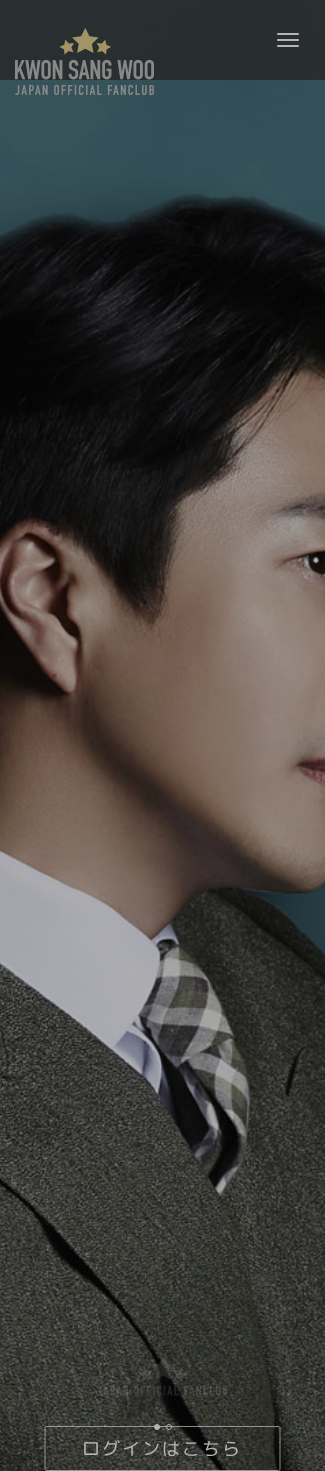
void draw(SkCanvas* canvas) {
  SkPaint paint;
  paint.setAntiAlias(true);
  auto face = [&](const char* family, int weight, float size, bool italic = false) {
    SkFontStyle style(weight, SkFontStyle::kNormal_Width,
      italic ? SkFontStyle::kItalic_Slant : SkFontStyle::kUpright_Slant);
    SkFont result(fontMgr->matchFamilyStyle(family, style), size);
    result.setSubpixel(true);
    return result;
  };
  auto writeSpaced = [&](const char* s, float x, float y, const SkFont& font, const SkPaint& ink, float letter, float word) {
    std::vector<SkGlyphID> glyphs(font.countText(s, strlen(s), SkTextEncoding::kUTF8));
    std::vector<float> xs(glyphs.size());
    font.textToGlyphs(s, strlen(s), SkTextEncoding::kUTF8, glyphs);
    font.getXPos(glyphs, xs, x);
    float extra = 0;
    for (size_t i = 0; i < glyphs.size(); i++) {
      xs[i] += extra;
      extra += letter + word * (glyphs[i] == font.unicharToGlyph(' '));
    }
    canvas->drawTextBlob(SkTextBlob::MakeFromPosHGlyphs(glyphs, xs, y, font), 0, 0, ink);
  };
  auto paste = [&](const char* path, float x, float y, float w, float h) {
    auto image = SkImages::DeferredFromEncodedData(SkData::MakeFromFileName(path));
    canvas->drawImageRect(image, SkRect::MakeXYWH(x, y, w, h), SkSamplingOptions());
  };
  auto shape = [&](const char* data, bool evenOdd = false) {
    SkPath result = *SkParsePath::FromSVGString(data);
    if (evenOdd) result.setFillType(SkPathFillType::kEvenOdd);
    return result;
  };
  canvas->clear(0xffffffff);
  paste("img/2.png", 0, 0, 325, 1471);
  paint.setColor(0xcc252525);
  canvas->drawRect(SkRect::MakeXYWH(0, 0, 325, 80), paint);
  paste("img/1.png", 15, 28, 139, 67);
  paint.setColor(0xffb5b5b5);
  canvas->drawRoundRect(SkRect::MakeXYWH(277, 33, 22, 2), 1, 1, paint);
  canvas->drawRoundRect(SkRect::MakeXYWH(277, 39, 22, 2), 1, 1, paint);
  canvas->drawRoundRect(SkRect::MakeXYWH(277, 45, 22, 2), 1, 1, paint);
  paint.setStroke(true);
  paint.setStrokeWidth(1);
  paint.setColor(0xbfb5b5b5);
  canvas->drawPath(shape("M46.5 1426.5H278.5C279.5 1426.5 280 1427.5 280 1428V1469C280 1470 279.5 1470.5 278.5 1470.5H46.5C45.5 1470.5 45 1469.5 45 1469V1428C45 1427 45.5 1426.5 46.5 1426.5Z"), paint);
  paint.setStroke(false);
  paint.setColor(0xffb5b5b5);
  canvas->drawCircle(157, 1427, 2.5f, paint);
  paint.setStroke(true);
  canvas->drawCircle(157, 1427, 2.5f, paint);
  canvas->drawCircle(169, 1427, 2.5f, paint);
  paste("img/3.png", 97, 1356, 131, 40);
  auto f0 = face("Rounded Mplus 1c", 400, 18);
  paint.setStroke(false);
  canvas->save();
  canvas->rotate(0.1f, 82, 1455);
  writeSpaced("ログインはこちら", 82, 1455, f0, paint, 2, 0);
  canvas->restore();
}
